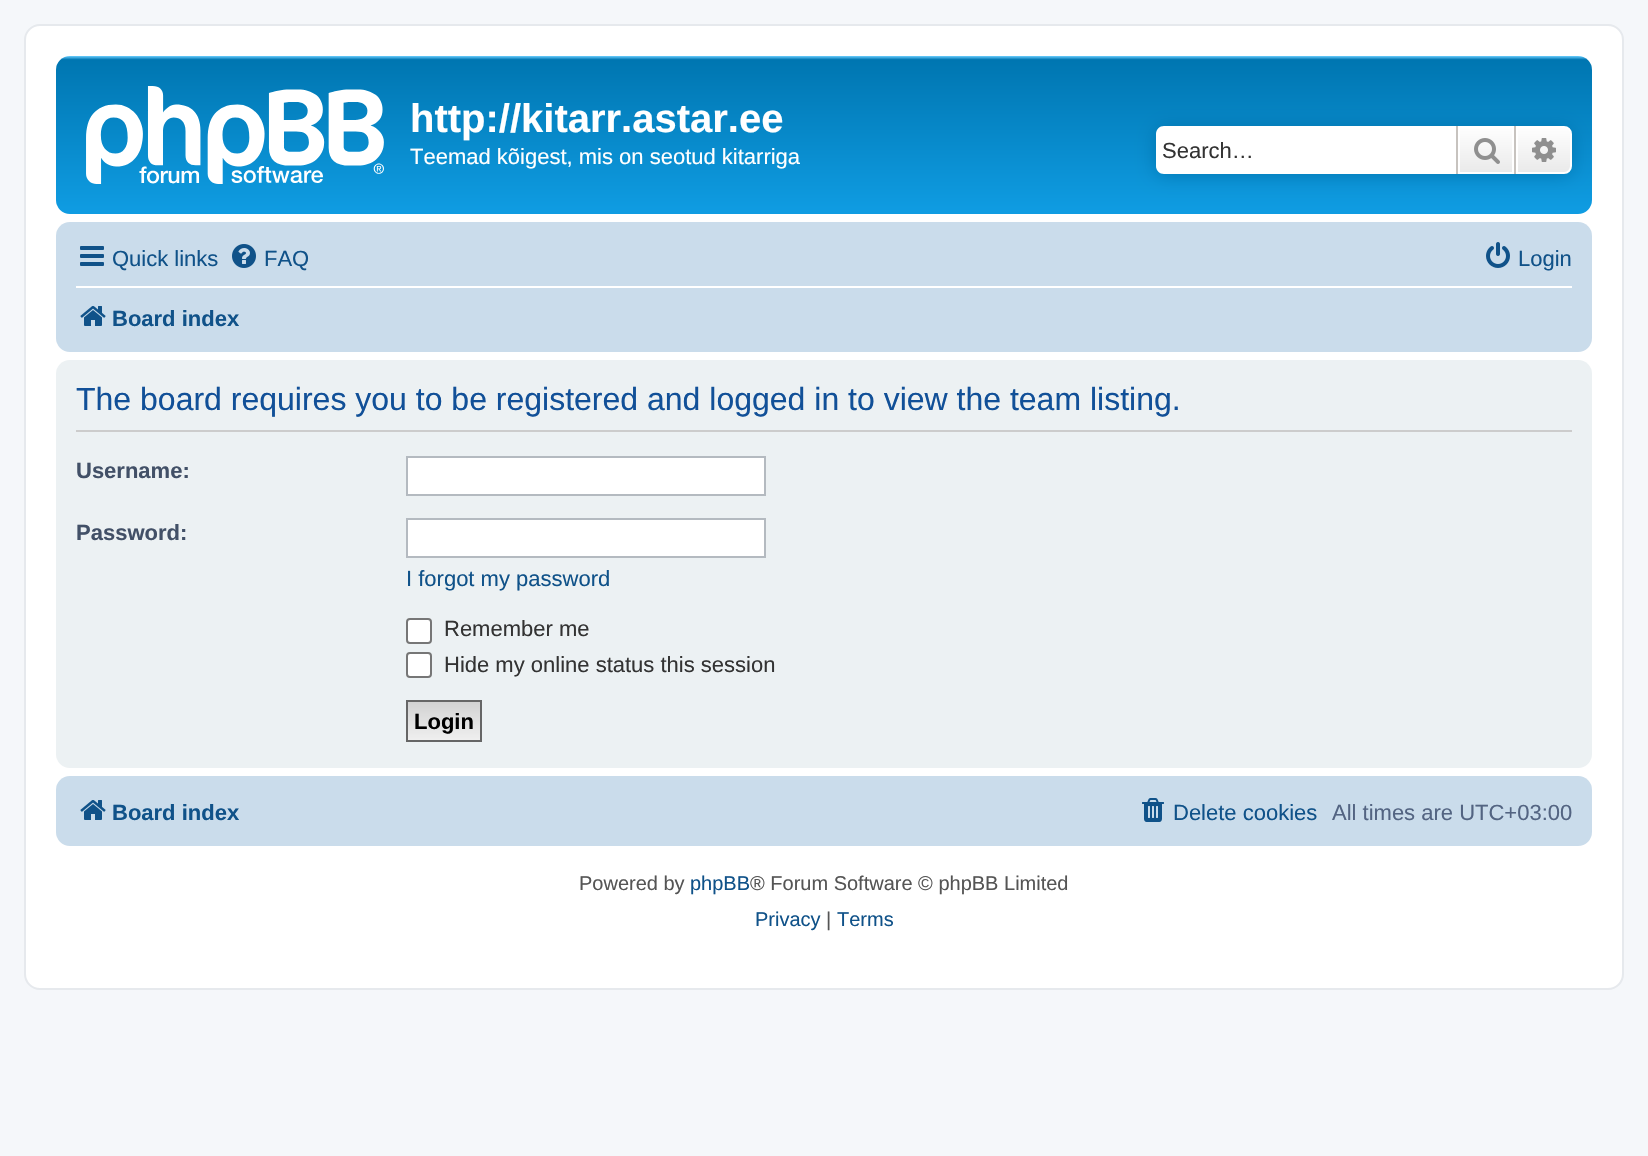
void draw(SkCanvas* canvas) {
  SkPaint paint;
  paint.setAntiAlias(true);
  auto face = [&](const char* family, int weight, float size, bool italic = false) {
    SkFontStyle style(weight, SkFontStyle::kNormal_Width,
      italic ? SkFontStyle::kItalic_Slant : SkFontStyle::kUpright_Slant);
    SkFont result(fontMgr->matchFamilyStyle(family, style), size);
    result.setSubpixel(true);
    return result;
  };
  auto paste = [&](const char* path, float x, float y, float w, float h) {
    auto image = SkImages::DeferredFromEncodedData(SkData::MakeFromFileName(path));
    canvas->drawImageRect(image, SkRect::MakeXYWH(x, y, w, h), SkSamplingOptions());
  };
  auto shape = [&](const char* data, bool evenOdd = false) {
    SkPath result = *SkParsePath::FromSVGString(data);
    if (evenOdd) result.setFillType(SkPathFillType::kEvenOdd);
    return result;
  };
  canvas->clear(0xfff5f7fa);
  paint.setColor(0xffffffff);
  canvas->drawRoundRect(SkRect::MakeXYWH(25, 25, 1598, 964), 15, 15, paint);
  paint.setStroke(true);
  paint.setStrokeWidth(2);
  paint.setColor(0xffe6e9ed);
  canvas->drawRoundRect(SkRect::MakeXYWH(25, 25, 1598, 964), 15, 15, paint);
  paint.setStroke(false);
  {
    const SkColor colors[] = {0xff6aceff, 0xff0076b1, 0xff12a3eb};
    const float stops[] = {0, 0.02f, 1};
    const SkPoint ends[] = {{824, 56}, {824, 240}};
    paint.setShader(SkGradientShader::MakeLinear(ends, colors, stops, 3, SkTileMode::kClamp));
    paint.setAlpha(255);
  }
  canvas->drawRoundRect(SkRect::MakeXYWH(56, 56, 1536, 158), 14, 14, paint);
  paste("img/1.png", 86, 86, 298, 98);
  paint.setShader(nullptr);
  paint.setColor(0xff0075b0);
  paint.setMaskFilter(SkMaskFilter::MakeBlur(kNormal_SkBlurStyle, 10));
  canvas->drawRoundRect(SkRect::MakeXYWH(1156, 126, 416, 48), 8, 8, paint);
  paint.setMaskFilter(nullptr);
  paint.setColor(0xffffffff);
  canvas->drawPath(shape("M1164 126H1456V174H1164C1159.5 174 1156 170.5 1156 166V134C1156 129.5 1159.5 126 1164 126Z"), paint);
  {
    const SkColor colors[] = {0xffffffff, 0xffe9e9e9};
    const float stops[] = {0, 1};
    const SkPoint ends[] = {{1486, 126}, {1486, 174}};
    paint.setShader(SkGradientShader::MakeLinear(ends, colors, stops, 2, SkTileMode::kClamp));
    paint.setAlpha(255);
  }
  canvas->drawRect(SkRect::MakeXYWH(1460, 128, 52, 44), paint);
  paint.setStroke(true);
  paint.setShader(nullptr);
  paint.setColor(0xffffffff);
  canvas->drawRect(SkRect::MakeXYWH(1459, 127, 54, 46), paint);
  paint.setStroke(false);
  paint.setColor(0xffc7c3bf);
  canvas->drawRect(SkRect::MakeXYWH(1514, 126, 2, 48), paint);
  canvas->drawRect(SkRect::MakeXYWH(1456, 126, 2, 48), paint);
  paste("img/2.png", 1474, 138, 26, 26);
  {
    const SkColor colors[] = {0xffffffff, 0xffe9e9e9};
    const float stops[] = {0, 1};
    const SkPoint ends[] = {{1544, 126}, {1544, 174}};
    paint.setShader(SkGradientShader::MakeLinear(ends, colors, stops, 2, SkTileMode::kClamp));
    paint.setAlpha(255);
  }
  canvas->drawPath(shape("M1517 127H1564C1568 127 1571 130 1571 134V166C1571 170 1568 173 1564 173H1517Z"), paint);
  paint.setStroke(true);
  paint.setShader(nullptr);
  paint.setColor(0xffffffff);
  canvas->drawPath(shape("M1517 127H1564C1568 127 1571 130 1571 134V166C1571 170 1568 173 1564 173H1517Z"), paint);
  paste("img/3.png", 1532, 138, 24, 24);
  paint.setStroke(false);
  paint.setColor(0xffcadceb);
  canvas->drawRoundRect(SkRect::MakeXYWH(56, 222, 1536, 130), 14, 14, paint);
  paste("img/4.png", 80, 246, 24, 20);
  paste("img/5.png", 232, 244, 24, 24);
  paste("img/6.png", 1486, 242, 24, 26);
  paint.setColor(0xffffffff);
  canvas->drawRect(SkRect::MakeXYWH(76, 286, 1496, 2), paint);
  paste("img/7.png", 80, 306, 26, 20);
  paint.setColor(0xffecf1f3);
  canvas->drawRoundRect(SkRect::MakeXYWH(56, 360, 1536, 408), 14, 14, paint);
  paint.setColor(0xffcccccc);
  canvas->drawRect(SkRect::MakeXYWH(76, 430, 1496, 2), paint);
  paint.setColor(0xffffffff);
  canvas->drawRect(SkRect::MakeXYWH(407, 457, 358, 38), paint);
  paint.setStroke(true);
  paint.setColor(0xffb4bac0);
  canvas->drawRect(SkRect::MakeXYWH(407, 457, 358, 38), paint);
  paint.setStroke(false);
  paint.setColor(0xffffffff);
  canvas->drawRect(SkRect::MakeXYWH(407, 519, 358, 38), paint);
  paint.setStroke(true);
  paint.setColor(0xffb4bac0);
  canvas->drawRect(SkRect::MakeXYWH(407, 519, 358, 38), paint);
  paint.setStroke(false);
  paint.setColor(0xffffffff);
  canvas->drawRoundRect(SkRect::MakeXYWH(407, 619, 24, 24), 3, 3, paint);
  paint.setStroke(true);
  paint.setColor(0xff767676);
  canvas->drawRoundRect(SkRect::MakeXYWH(407, 619, 24, 24), 3, 3, paint);
  paint.setStroke(false);
  paint.setColor(0xffffffff);
  canvas->drawRoundRect(SkRect::MakeXYWH(407, 653, 24, 24), 3, 3, paint);
  paint.setStroke(true);
  paint.setColor(0xff767676);
  canvas->drawRoundRect(SkRect::MakeXYWH(407, 653, 24, 24), 3, 3, paint);
  paint.setStroke(false);
  {
    const SkColor colors[] = {0xffd2d2d2, 0xffefefef};
    const float stops[] = {0, 1};
    const SkPoint ends[] = {{444, 702}, {444, 740}};
    paint.setShader(SkGradientShader::MakeLinear(ends, colors, stops, 2, SkTileMode::kClamp));
    paint.setAlpha(255);
  }
  canvas->drawRect(SkRect::MakeXYWH(408, 702, 72, 38), paint);
  paint.setStroke(true);
  paint.setShader(nullptr);
  paint.setColor(0xff666666);
  canvas->drawRect(SkRect::MakeXYWH(407, 701, 74, 40), paint);
  paint.setStroke(false);
  paint.setColor(0xffcadceb);
  canvas->drawRoundRect(SkRect::MakeXYWH(56, 776, 1536, 70), 14, 14, paint);
  paste("img/7.png", 80, 800, 26, 20);
  paste("img/8.png", 1142, 798, 22, 24);
  auto f0 = face("Liberation Sans", 700, 40);
  paint.setColor(0xffffffff);
  canvas->drawString("http://kitarr.astar.ee", 410, 132, f0, paint);
  auto f1 = face("Liberation Sans", 400, 22);
  canvas->drawString("Teemad kõigest, mis on seotud kitarriga", 410, 164, f1, paint);
  paint.setColor(0xff333333);
  canvas->drawString("Search…", 1162, 158, f1, paint);
  paint.setColor(0xff105289);
  {
    const struct { const char* s; float x, y; } items[] = {
      {"Quick links", 112, 266},
      {"FAQ", 264, 266},
      {"Login", 1518, 266},
    };
    for (auto [s, x, y] : items) {
      canvas->drawString(s, x, y, f1, paint);
    }
  }
  auto f2 = face("Liberation Sans", 700, 22);
  canvas->drawString("Board index", 112, 326, f2, paint);
  auto f3 = face("Liberation Sans", 400, 32);
  paint.setColor(0xff115098);
  canvas->drawString("The board requires you to be registered and logged in to view the team listing.", 76, 410, f3, paint);
  paint.setColor(0xff425067);
  canvas->drawString("Username:", 76, 478, f2, paint);
  canvas->drawString("Password:", 76, 540, f2, paint);
  paint.setColor(0xff105289);
  canvas->drawString("I forgot my password", 406, 586, f1, paint);
  paint.setColor(0xff333333);
  canvas->drawString("Remember me", 444, 636, f1, paint);
  canvas->drawString("Hide my online status this session", 444, 672, f1, paint);
  paint.setColor(0xff000000);
  canvas->drawString("Login", 414, 729, f2, paint);
  paint.setColor(0xff105289);
  canvas->drawString("Board index", 112, 820, f2, paint);
  canvas->drawString("Delete cookies", 1173, 820, f1, paint);
  paint.setColor(0xff536482);
  canvas->drawString("All times are UTC+03:00", 1332, 820, f1, paint);
  auto f4 = face("Liberation Sans", 400, 20);
  paint.setColor(0xff555555);
  canvas->drawString("Powered by", 579, 890, f4, paint);
  paint.setColor(0xff105289);
  canvas->drawString("phpBB", 690, 890, f4, paint);
  paint.setColor(0xff555555);
  canvas->drawString("® Forum Software © phpBB Limited", 750, 890, f4, paint);
  paint.setColor(0xff105289);
  canvas->drawString("Privacy", 755, 926, f4, paint);
  paint.setColor(0xff555555);
  canvas->drawString("|", 826, 926, f4, paint);
  paint.setColor(0xff105289);
  canvas->drawString("Terms", 837, 926, f4, paint);
}
